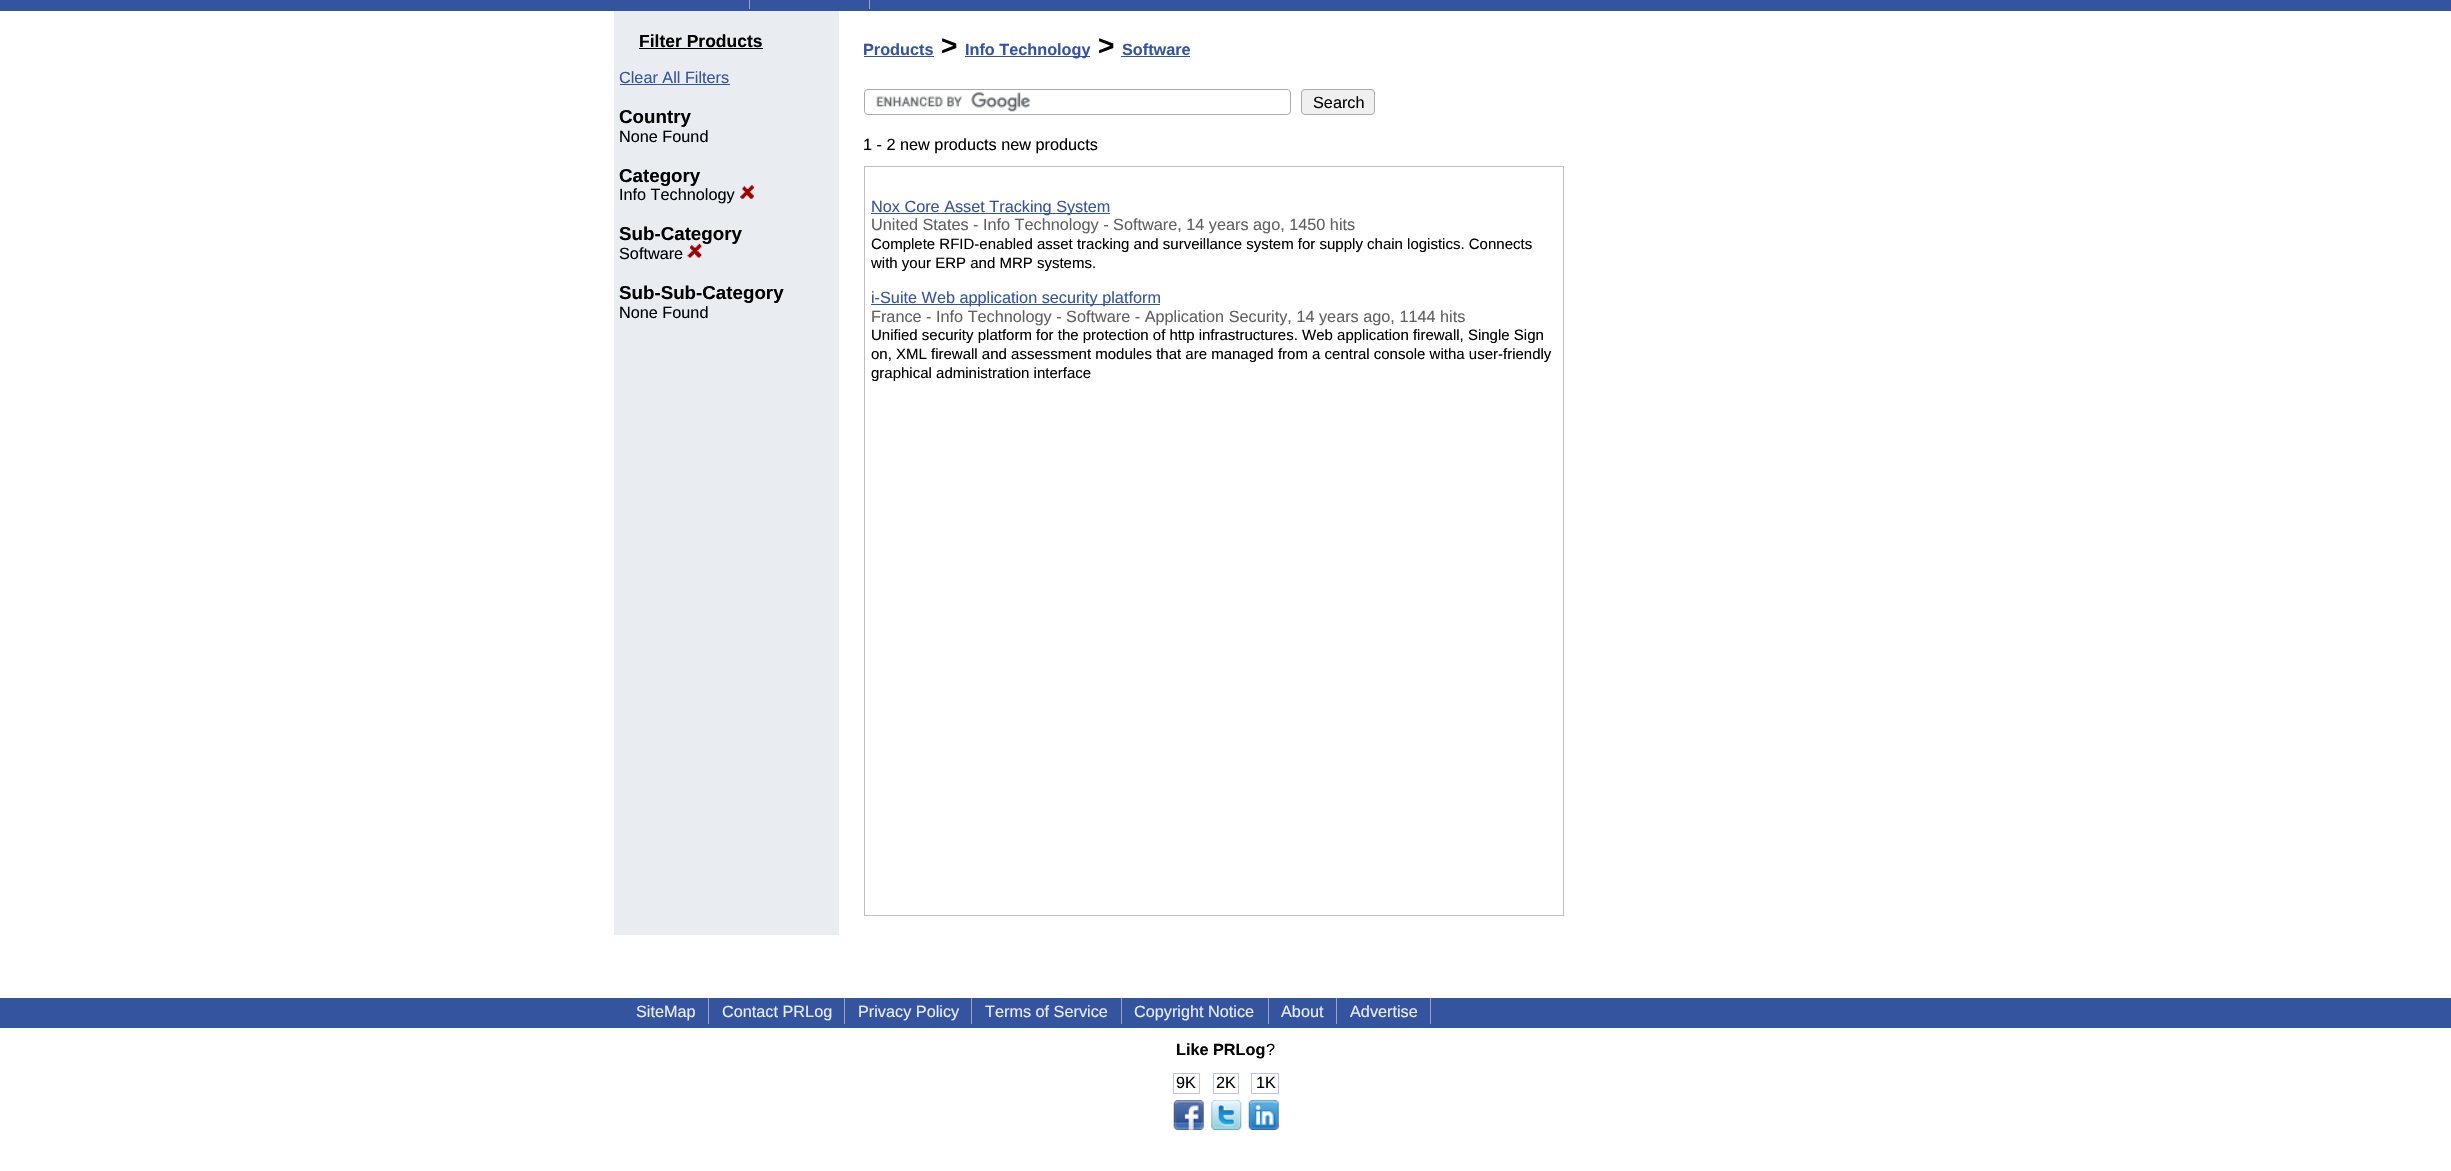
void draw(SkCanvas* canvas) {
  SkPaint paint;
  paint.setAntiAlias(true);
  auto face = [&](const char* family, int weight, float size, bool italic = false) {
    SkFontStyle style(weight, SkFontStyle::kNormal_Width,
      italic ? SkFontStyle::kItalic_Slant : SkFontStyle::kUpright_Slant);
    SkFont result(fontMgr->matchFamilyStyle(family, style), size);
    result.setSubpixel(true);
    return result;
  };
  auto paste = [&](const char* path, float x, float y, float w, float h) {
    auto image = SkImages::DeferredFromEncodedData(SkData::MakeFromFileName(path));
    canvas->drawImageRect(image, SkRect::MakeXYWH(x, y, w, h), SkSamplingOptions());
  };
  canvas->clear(0xffffffff);
  {
    const struct { float x, y, w, h; SkColor color; } items[] = {
      {0, 0, 2451, 11, 0xff3454a0},
      {749, 0, 1, 9, 0xffa0a0c0},
      {869, 0, 1, 9, 0xffa0a0c0},
      {614, 11, 225, 924, 0xffe9edf2},
      {639, 48, 124, 1, 0xff000000},
      {620, 84, 110, 1, 0xff3454a0},
    };
    for (auto [x, y, w, h, color] : items) {
      paint.setColor(color);
      canvas->drawRect(SkRect::MakeXYWH(x, y, w, h), paint);
    }
  }
  paste("img/1.png", 740, 185, 14, 14);
  {
    const struct { float x, y, w, h; SkColor color; } items[] = {
      {864, 56, 70, 1, 0xff3454a0},
      {965, 56, 125, 1, 0xff3454a0},
      {1121, 56, 69, 1, 0xff3454a0},
    };
    for (auto [x, y, w, h, color] : items) {
      paint.setColor(color);
      canvas->drawRect(SkRect::MakeXYWH(x, y, w, h), paint);
    }
  }
  paste("img/3.png", 876, 92, 154, 20);
  paint.setStroke(true);
  paint.setStrokeWidth(1);
  paint.setColor(0xffaaaaaa);
  canvas->drawRoundRect(SkRect::MakeXYWH(864.5f, 89.5f, 426, 25), 3.5f, 3.5f, paint);
  paint.setStroke(false);
  paint.setColor(0xfff0f0f0);
  canvas->drawRoundRect(SkRect::MakeXYWH(1301.5f, 89.5f, 73, 25), 3.5f, 3.5f, paint);
  paint.setStroke(true);
  paint.setColor(0xffaaaaaa);
  canvas->drawRoundRect(SkRect::MakeXYWH(1301.5f, 89.5f, 73, 25), 3.5f, 3.5f, paint);
  paint.setColor(0xffc0c0c0);
  canvas->drawRect(SkRect::MakeXYWH(864.5f, 166.5f, 699, 749), paint);
  paint.setStroke(false);
  {
    const struct { float x, y, w, h; SkColor color; } items[] = {
      {871, 213, 239, 1, 0xff3454a0},
      {871, 304, 289, 1, 0xff3454a0},
      {0, 998, 2451, 30, 0xff3454a0},
      {708, 998, 1, 26, 0xffa0a0c0},
      {844, 998, 1, 26, 0xffa0a0c0},
      {971, 998, 1, 26, 0xffa0a0c0},
      {1121, 998, 1, 26, 0xffa0a0c0},
      {1268, 998, 1, 26, 0xffa0a0c0},
      {1336, 998, 1, 26, 0xffa0a0c0},
      {1430, 998, 1, 26, 0xffa0a0c0},
    };
    for (auto [x, y, w, h, color] : items) {
      paint.setColor(color);
      canvas->drawRect(SkRect::MakeXYWH(x, y, w, h), paint);
    }
  }
  paint.setStroke(true);
  paint.setColor(0xffc0c0ff);
  canvas->drawRect(SkRect::MakeXYWH(1173.5f, 1073.5f, 26, 20), paint);
  canvas->drawRect(SkRect::MakeXYWH(1213.5f, 1073.5f, 25, 20), paint);
  canvas->drawRect(SkRect::MakeXYWH(1251.5f, 1073.5f, 27, 20), paint);
  paste("img/4.png", 1173, 1100, 106, 30);
  auto f0 = face("Liberation Sans", 700, 17.5f);
  paint.setStroke(false);
  paint.setColor(0xff000000);
  canvas->drawString("Filter Products", 639, 47, f0, paint);
  auto f1 = face("Liberation Sans", 400, 16.25f);
  paint.setColor(0xff3454a0);
  canvas->drawString("Clear All Filters", 619, 83, f1, paint);
  auto f2 = face("Liberation Sans", 700, 18.75f);
  paint.setColor(0xff000000);
  canvas->drawString("Country", 619, 123, f2, paint);
  canvas->drawString("None Found", 619, 142, f1, paint);
  canvas->drawString("Category", 619, 182, f2, paint);
  canvas->drawString("Info Technology", 619, 200, f1, paint);
  canvas->drawString("Sub-Category", 619, 240, f2, paint);
  canvas->drawString("Software", 619, 259, f1, paint);
  paste("img/2.png", 687, 243, 15, 15);
  canvas->drawString("Sub-Sub-Category", 619, 299, f2, paint);
  canvas->drawString("None Found", 619, 318, f1, paint);
  auto f3 = face("Liberation Sans", 700, 16.25f);
  paint.setColor(0xff3454a0);
  canvas->drawString("Products", 863, 55, f3, paint);
  auto f4 = face("Liberation Sans", 700, 28);
  paint.setColor(0xff000000);
  canvas->drawString(">", 941, 55, f4, paint);
  paint.setColor(0xff3454a0);
  canvas->drawString("Info Technology", 965, 55, f3, paint);
  paint.setColor(0xff000000);
  canvas->drawString(">", 1098, 55, f4, paint);
  paint.setColor(0xff3454a0);
  canvas->drawString("Software", 1122, 55, f3, paint);
  paint.setColor(0xff000000);
  canvas->drawString("Search", 1313, 108, f1, paint);
  canvas->drawString("1 - 2 new products new products", 863, 150, f1, paint);
  paint.setColor(0xff3454a0);
  canvas->drawString("Nox Core Asset Tracking System", 871, 212, f1, paint);
  paint.setColor(0xff606060);
  canvas->drawString("United States - Info Technology - Software, 14 years ago, 1450 hits", 871, 230, f1, paint);
  auto f5 = face("Liberation Sans", 400, 15);
  paint.setColor(0xff000000);
  canvas->drawString("Complete RFID-enabled asset tracking and surveillance system for supply chain logistics. Connects", 871, 249, f5, paint);
  canvas->drawString("with your ERP and MRP systems.", 871, 268, f5, paint);
  paint.setColor(0xff3454a0);
  canvas->drawString("i-Suite Web application security platform", 871, 303, f1, paint);
  paint.setColor(0xff606060);
  canvas->drawString("France - Info Technology - Software - Application Security, 14 years ago, 1144 hits", 871, 322, f1, paint);
  paint.setColor(0xff000000);
  {
    const struct { const char* s; float x, y; } items[] = {
      {"Unified security platform for the protection of http infrastructures. Web application firewall, Single Sign", 871, 340},
      {"on, XML firewall and assessment modules that are managed from a central console witha user-friendly", 871, 359},
      {"graphical administration interface", 871, 378},
    };
    for (auto [s, x, y] : items) {
      canvas->drawString(s, x, y, f5, paint);
    }
  }
  paint.setColor(0xffe9edf2);
  {
    const struct { const char* s; float x, y; } items[] = {
      {"SiteMap", 636, 1017},
      {"Contact PRLog", 722, 1017},
      {"Privacy Policy", 858, 1017},
      {"Terms of Service", 985, 1017},
      {"Copyright Notice", 1134, 1017},
      {"About", 1281, 1017},
      {"Advertise", 1350, 1017},
    };
    for (auto [s, x, y] : items) {
      canvas->drawString(s, x, y, f1, paint);
    }
  }
  paint.setColor(0xff000000);
  canvas->drawString("Like PRLog", 1176, 1055, f3, paint);
  {
    const struct { const char* s; float x, y; } items[] = {
      {"?", 1266, 1055},
      {"9K", 1176, 1088},
      {"2K", 1216, 1088},
      {"1K", 1256, 1088},
    };
    for (auto [s, x, y] : items) {
      canvas->drawString(s, x, y, f1, paint);
    }
  }
}
